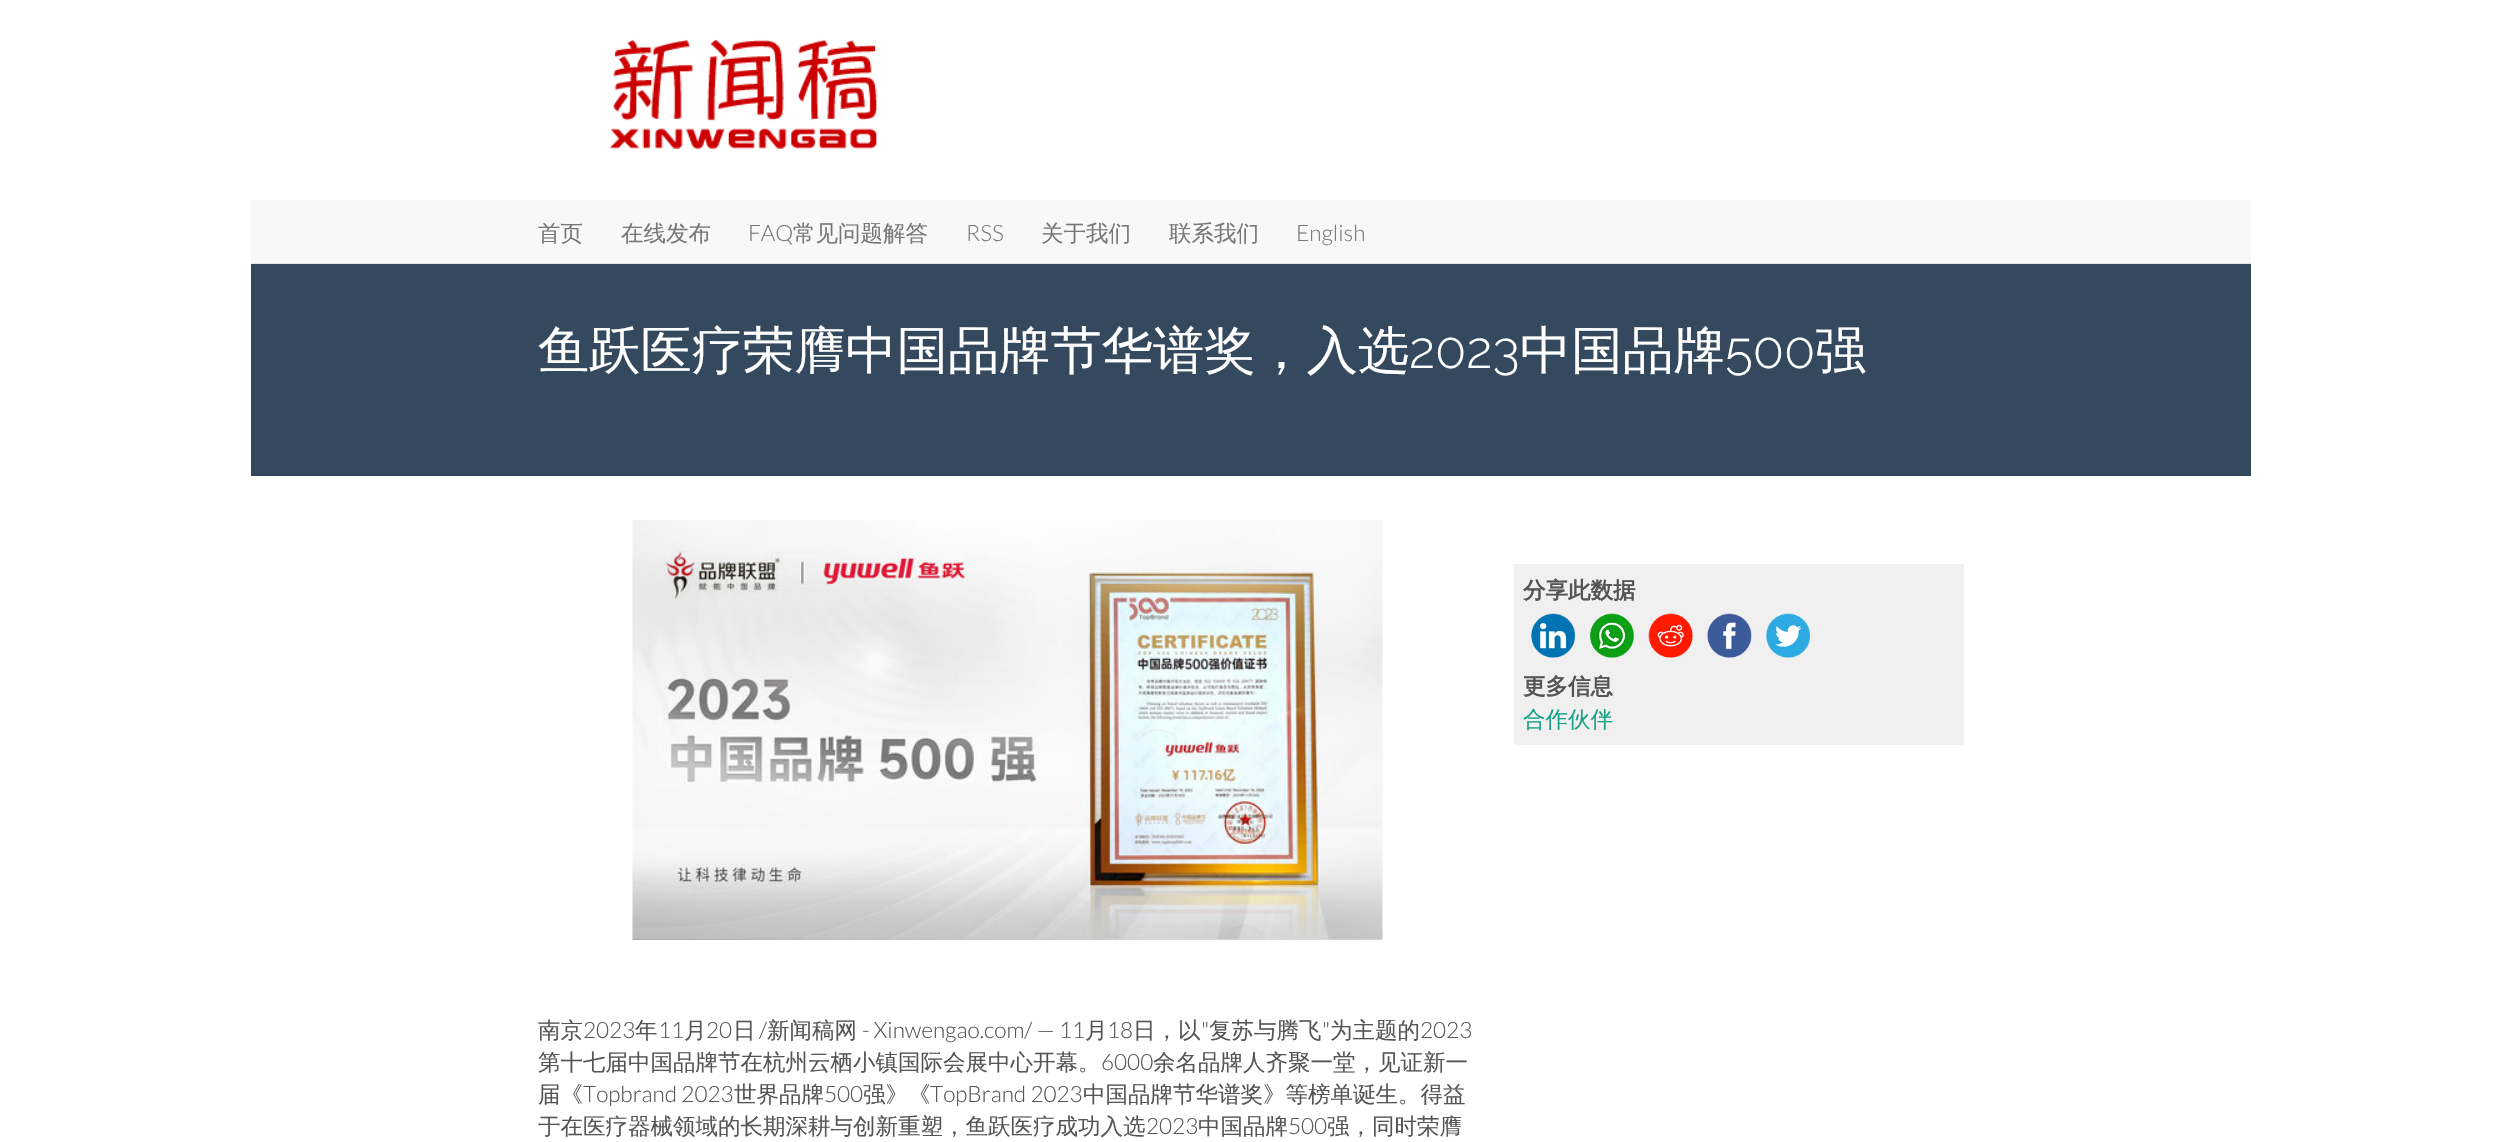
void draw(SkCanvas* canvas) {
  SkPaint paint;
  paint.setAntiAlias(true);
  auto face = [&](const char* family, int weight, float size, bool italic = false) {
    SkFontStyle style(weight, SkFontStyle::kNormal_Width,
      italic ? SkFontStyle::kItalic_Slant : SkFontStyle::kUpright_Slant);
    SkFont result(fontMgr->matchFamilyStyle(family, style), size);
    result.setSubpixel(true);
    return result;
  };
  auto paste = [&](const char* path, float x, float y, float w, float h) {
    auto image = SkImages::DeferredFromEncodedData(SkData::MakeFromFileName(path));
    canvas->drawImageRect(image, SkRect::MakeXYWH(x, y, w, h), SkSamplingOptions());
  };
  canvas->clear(0xffffffff);
  paste("img/1.png", 610, 39, 267, 110);
  {
    const struct { float x, y, w, h; SkColor color; } items[] = {
      {251, 200, 2000, 63, 0xfff8f8f8},
      {251, 263, 2000, 1, 0xffe7e7e7},
      {251, 264, 2000, 212, 0xff34495e},
      {1514, 564, 450, 181, 0xfff0f0f0},
    };
    for (auto [x, y, w, h, color] : items) {
      paint.setColor(color);
      canvas->drawRect(SkRect::MakeXYWH(x, y, w, h), paint);
    }
  }
  paste("img/2.png", 1531, 613, 44, 45);
  paste("img/3.png", 1590, 613, 44, 45);
  paste("img/4.png", 1648, 613, 45, 45);
  paste("img/5.png", 1707, 613, 45, 45);
  paste("img/6.png", 1766, 613, 44, 45);
  paste("img/7.png", 632, 520, 751, 420);
  auto f0 = face("WenQuanYi Zen Hei", 500, 22.5f);
  paint.setColor(0xff777777);
  canvas->drawString("首页", 538, 241, f0, paint);
  canvas->drawString("在线发布", 621, 241, f0, paint);
  auto f1 = face("Lato", 300, 22.5f);
  canvas->drawString("FAQ", 748, 241, f1, paint);
  canvas->drawString("常见问题解答", 793, 241, f0, paint);
  canvas->drawString("RSS", 966, 241, f1, paint);
  canvas->drawString("关于我们", 1041, 241, f0, paint);
  canvas->drawString("联系我们", 1169, 241, f0, paint);
  canvas->drawString("English", 1296, 241, f1, paint);
  auto f2 = face("WenQuanYi Zen Hei", 500, 51.25f);
  paint.setColor(0xffffffff);
  canvas->drawString("鱼跃医疗荣膺中国品牌节华谱奖，入选", 538, 368, f2, paint);
  auto f3 = face("Raleway", 300, 51.25f);
  canvas->drawString("2023", 1409, 368, f3, paint);
  canvas->drawString("中国品牌", 1520, 368, f2, paint);
  canvas->drawString("500", 1725, 368, f3, paint);
  canvas->drawString("强", 1815, 368, f2, paint);
  auto f4 = face("WenQuanYi Zen Hei", 700, 22.5f);
  paint.setColor(0xff555555);
  canvas->drawString("分享此数据", 1523, 598, f4, paint);
  canvas->drawString("更多信息", 1523, 694, f4, paint);
  paint.setColor(0xff16a085);
  canvas->drawString("合作伙伴", 1523, 727, f0, paint);
  paint.setColor(0xff555555);
  canvas->drawString("南京", 538, 1038, f0, paint);
  canvas->drawString("2023", 583, 1038, f1, paint);
  canvas->drawString("年", 635, 1038, f0, paint);
  canvas->drawString("11", 658, 1038, f1, paint);
  canvas->drawString("月", 684, 1038, f0, paint);
  canvas->drawString("20", 706, 1038, f1, paint);
  canvas->drawString("日", 733, 1038, f0, paint);
  canvas->drawString("/", 759, 1038, f1, paint);
  canvas->drawString("新闻稿网", 767, 1038, f0, paint);
  canvas->drawString("- Xinwengao.com/ — 11", 862, 1038, f1, paint);
  canvas->drawString("月", 1085, 1038, f0, paint);
  canvas->drawString("18", 1107, 1038, f1, paint);
  canvas->drawString("日，以", 1133, 1038, f0, paint);
  canvas->drawString("\"", 1201, 1038, f1, paint);
  canvas->drawString("复苏与腾飞", 1209, 1038, f0, paint);
  canvas->drawString("\"", 1322, 1038, f1, paint);
  canvas->drawString("为主题的", 1330, 1038, f0, paint);
  canvas->drawString("2023", 1420, 1038, f1, paint);
  canvas->drawString("第十七届中国品牌节在杭州云栖小镇国际会展中心开幕。", 538, 1070, f0, paint);
  canvas->drawString("6000", 1101, 1070, f1, paint);
  canvas->drawString("余名品牌人齐聚一堂，见证新一", 1153, 1070, f0, paint);
  canvas->drawString("届《", 538, 1102, f0, paint);
  canvas->drawString("Topbrand 2023", 583, 1102, f1, paint);
  canvas->drawString("世界品牌", 734, 1102, f0, paint);
  canvas->drawString("500", 824, 1102, f1, paint);
  canvas->drawString("强》《", 863, 1102, f0, paint);
  canvas->drawString("TopBrand 2023", 930, 1102, f1, paint);
  canvas->drawString("中国品牌节华谱奖》等榜单诞生。得益", 1083, 1102, f0, paint);
  canvas->drawString("于在医疗器械领域的长期深耕与创新重塑，鱼跃医疗成功入选", 538, 1134, f0, paint);
  canvas->drawString("2023", 1146, 1134, f1, paint);
  canvas->drawString("中国品牌", 1198, 1134, f0, paint);
  canvas->drawString("500", 1288, 1134, f1, paint);
  canvas->drawString("强，同时荣膺", 1327, 1134, f0, paint);
}
